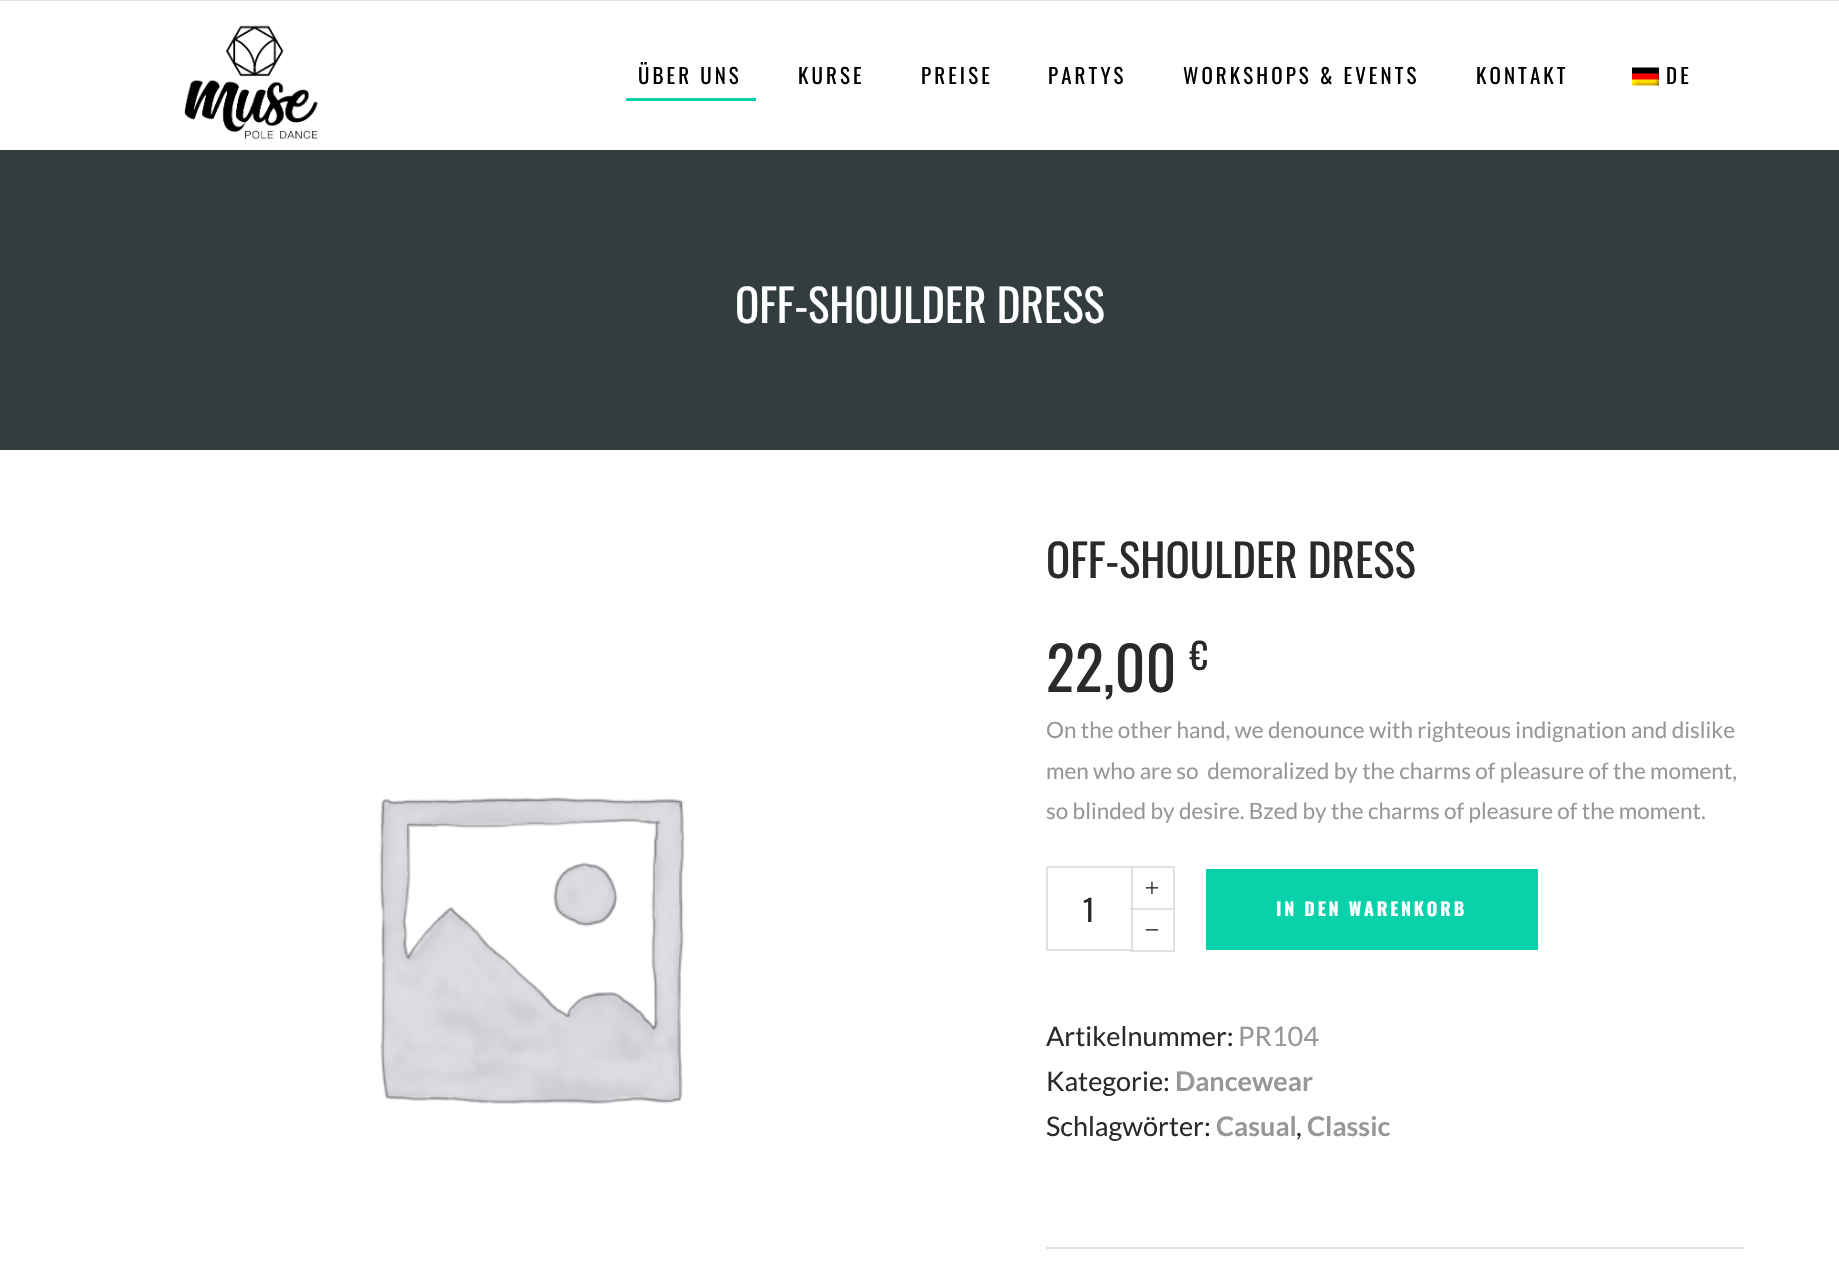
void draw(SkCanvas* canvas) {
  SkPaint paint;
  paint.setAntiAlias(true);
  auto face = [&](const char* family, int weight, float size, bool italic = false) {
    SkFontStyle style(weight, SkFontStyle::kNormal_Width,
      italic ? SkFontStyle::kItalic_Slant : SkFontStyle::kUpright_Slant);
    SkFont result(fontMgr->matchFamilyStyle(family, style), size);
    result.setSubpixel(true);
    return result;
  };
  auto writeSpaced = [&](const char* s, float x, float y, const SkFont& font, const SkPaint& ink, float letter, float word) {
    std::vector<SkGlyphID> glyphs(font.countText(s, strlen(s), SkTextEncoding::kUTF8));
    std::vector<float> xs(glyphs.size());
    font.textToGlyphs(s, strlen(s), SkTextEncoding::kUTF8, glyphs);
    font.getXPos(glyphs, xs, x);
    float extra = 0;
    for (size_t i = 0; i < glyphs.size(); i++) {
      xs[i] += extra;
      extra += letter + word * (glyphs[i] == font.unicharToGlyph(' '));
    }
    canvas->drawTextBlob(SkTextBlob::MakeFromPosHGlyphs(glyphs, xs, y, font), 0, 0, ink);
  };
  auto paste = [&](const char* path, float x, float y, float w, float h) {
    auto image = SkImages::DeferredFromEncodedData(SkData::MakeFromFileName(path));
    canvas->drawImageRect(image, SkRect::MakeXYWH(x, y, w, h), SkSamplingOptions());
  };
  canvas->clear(0xffffffff);
  paint.setColor(0xffe1e1e1);
  canvas->drawRect(SkRect::MakeXYWH(0, 0, 1839, 1), paint);
  paste("img/1.png", 184, 25, 134, 115);
  paste("img/2.png", 1632, 67, 27, 19);
  paint.setColor(0xff09d2aa);
  canvas->drawRect(SkRect::MakeXYWH(626, 98, 130, 3), paint);
  paint.setColor(0xff333d3f);
  canvas->drawRect(SkRect::MakeXYWH(0, 150, 1839, 300), paint);
  paste("img/3.png", 379, 797, 306, 308);
  {
    const struct { float x, y, w, h; SkColor color; } items[] = {
      {1130, 908, 45, 2, 0xffe1e1e1},
      {1173, 908, 2, 43, 0xffe1e1e1},
      {1130, 950, 45, 2, 0xffe1e1e1},
    };
    for (auto [x, y, w, h, color] : items) {
      paint.setColor(color);
      canvas->drawRect(SkRect::MakeXYWH(x, y, w, h), paint);
    }
  }
  paint.setStroke(true);
  paint.setStrokeWidth(2);
  canvas->drawRect(SkRect::MakeXYWH(1047, 867, 85, 83), paint);
  paint.setStroke(false);
  canvas->drawRect(SkRect::MakeXYWH(1130, 866, 45, 2), paint);
  canvas->drawRect(SkRect::MakeXYWH(1173, 866, 2, 43), paint);
  paste("img/4.png", 1145, 881, 14, 14);
  paste("img/5.png", 1145, 929, 14, 2);
  paint.setColor(0xff09d2aa);
  canvas->drawRect(SkRect::MakeXYWH(1206, 869, 332, 81), paint);
  paint.setColor(0xffe1e1e1);
  canvas->drawRect(SkRect::MakeXYWH(1046, 1247, 699, 2), paint);
  auto f0 = face("Oswald", 400, 21);
  paint.setColor(0xff000000);
  {
    const struct { const char* s; float x, y; } items[] = {
      {"ÜBER UNS", 638, 84},
      {"KURSE", 798, 84},
      {"PREISE", 921, 84},
      {"PARTYS", 1048, 84},
      {"WORKSHOPS & EVENTS", 1183, 84},
      {"KONTAKT", 1476, 84},
      {"DE", 1666, 84},
    };
    for (auto [s, x, y] : items) {
      writeSpaced(s, x, y, f0, paint, 3.1f, 0);
    }
  }
  auto f1 = face("Oswald", 400, 45);
  paint.setColor(0xffffffff);
  canvas->drawString("OFF-SHOULDER DRESS", 735, 323, f1, paint);
  paint.setColor(0xff2a2a2a);
  canvas->drawString("OFF-SHOULDER DRESS", 1046, 578, f1, paint);
  auto f2 = face("Oswald", 400, 60);
  canvas->drawString("22,00", 1046, 692, f2, paint);
  auto f3 = face("Oswald", 400, 36);
  canvas->drawString("€", 1190, 670, f3, paint);
  auto f4 = face("Lato", 400, 22.5f);
  paint.setColor(0xff979797);
  {
    const struct { const char* s; float x, y; } items[] = {
      {"On the other hand, we denounce with righteous indignation and dislike", 1046, 738},
      {"men who are so  demoralized by the charms of pleasure of the moment,", 1046, 779},
      {"so blinded by desire. Bzed by the charms of pleasure of the moment.", 1046, 819},
    };
    for (auto [s, x, y] : items) {
      canvas->drawString(s, x, y, f4, paint);
    }
  }
  auto f5 = face("Oswald", 400, 30);
  paint.setColor(0xff2a2a2a);
  canvas->drawString("1", 1083, 922, f5, paint);
  auto f6 = face("Oswald", 700, 18);
  paint.setColor(0xffffffff);
  writeSpaced("IN DEN WARENKORB", 1276, 916, f6, paint, 2.75f, 0);
  auto f7 = face("Lato", 400, 27);
  paint.setColor(0xff2a2a2a);
  canvas->drawString("Artikelnummer:", 1046, 1046, f7, paint);
  paint.setColor(0xff979797);
  canvas->drawString("PR104", 1238, 1046, f7, paint);
  paint.setColor(0xff2a2a2a);
  canvas->drawString("Kategorie:", 1046, 1091, f7, paint);
  auto f8 = face("Lato", 700, 27);
  paint.setColor(0xff979797);
  canvas->drawString("Dancewear", 1175, 1091, f8, paint);
  paint.setColor(0xff2a2a2a);
  canvas->drawString("Schlagwörter:", 1046, 1136, f7, paint);
  paint.setColor(0xff979797);
  canvas->drawString("Casual", 1216, 1136, f8, paint);
  paint.setColor(0xff2a2a2a);
  canvas->drawString(",", 1296, 1136, f7, paint);
  paint.setColor(0xff979797);
  canvas->drawString("Classic", 1307, 1136, f8, paint);
}
